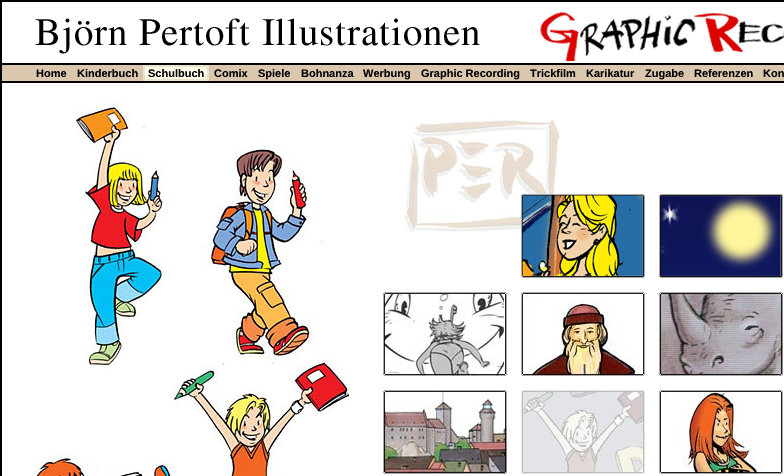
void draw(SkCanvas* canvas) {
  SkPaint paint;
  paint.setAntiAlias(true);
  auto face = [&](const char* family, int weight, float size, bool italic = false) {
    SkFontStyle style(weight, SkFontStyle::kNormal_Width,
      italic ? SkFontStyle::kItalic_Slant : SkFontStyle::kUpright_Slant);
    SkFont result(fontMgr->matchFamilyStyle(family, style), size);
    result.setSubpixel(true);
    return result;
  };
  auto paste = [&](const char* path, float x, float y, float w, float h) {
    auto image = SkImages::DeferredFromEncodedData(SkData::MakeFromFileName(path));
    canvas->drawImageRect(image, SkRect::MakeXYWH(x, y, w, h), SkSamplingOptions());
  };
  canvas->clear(0xffffffff);
  paint.setStroke(true);
  paint.setStrokeWidth(2);
  paint.setColor(0xff000000);
  canvas->drawRect(SkRect::MakeXYWH(1, 1, 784, 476), paint);
  paste("img/1.png", 35, 11, 749, 50);
  paint.setStroke(false);
  {
    const struct { float x, y, w, h; SkColor color; } items[] = {
      {2, 65, 782, 16, 0xffdbc7ae},
      {2, 63, 782, 2, 0xff000000},
      {2, 81, 782, 2, 0xff000000},
    };
    for (auto [x, y, w, h, color] : items) {
      paint.setColor(color);
      canvas->drawRect(SkRect::MakeXYWH(x, y, w, h), paint);
    }
  }
  paint.setColor(0xfffffdea);
  canvas->drawRect(SkRect::MakeXYWH(144, 66, 64, 14), paint);
  paint.setStroke(true);
  paint.setColor(0xffede2cc);
  canvas->drawRect(SkRect::MakeXYWH(144, 66, 64, 14), paint);
  paste("img/2.png", 376, 118, 184, 358);
  paste("img/3.png", 35, 102, 315, 374);
  paste("img/4.png", 521, 194, 124, 84);
  paste("img/5.png", 659, 194, 124, 84);
  paste("img/6.png", 383, 292, 124, 84);
  paste("img/7.png", 521, 292, 124, 84);
  paste("img/8.png", 659, 292, 124, 84);
  paste("img/9.png", 383, 390, 124, 84);
  paste("img/10.png", 521, 390, 124, 84);
  paste("img/11.png", 659, 390, 124, 84);
  auto f0 = face("Liberation Sans", 700, 11);
  paint.setStroke(false);
  paint.setColor(0xff000000);
  {
    const struct { const char* s; float x, y; } items[] = {
      {"Home", 36, 77},
      {"Kinderbuch", 77, 77},
      {"Schulbuch", 148, 77},
      {"Comix", 214, 77},
      {"Spiele", 258, 77},
      {"Bohnanza", 301, 77},
      {"Werbung", 363, 77},
      {"Graphic Recording", 421, 77},
      {"Trickfilm", 530, 77},
      {"Karikatur", 586, 77},
      {"Zugabe", 645, 77},
      {"Referenzen", 694, 77},
      {"Kon", 763, 77},
    };
    for (auto [s, x, y] : items) {
      canvas->drawString(s, x, y, f0, paint);
    }
  }
}
